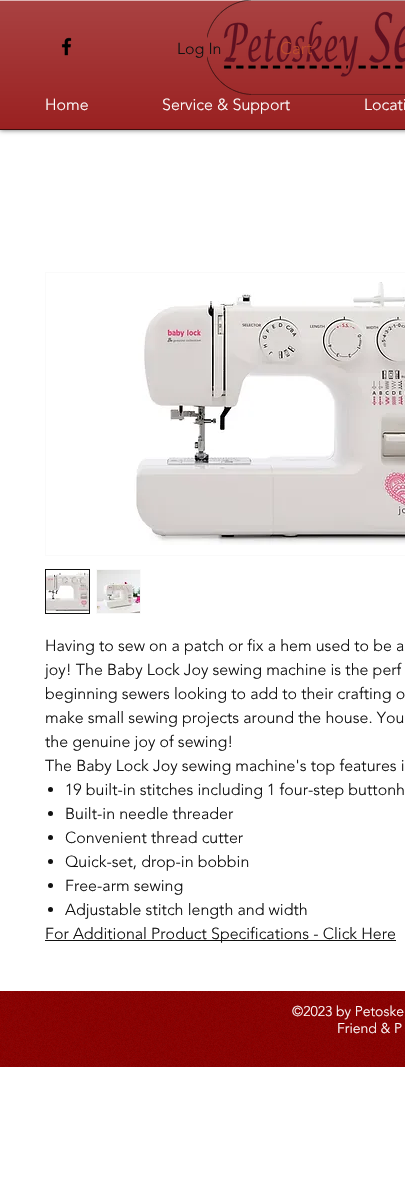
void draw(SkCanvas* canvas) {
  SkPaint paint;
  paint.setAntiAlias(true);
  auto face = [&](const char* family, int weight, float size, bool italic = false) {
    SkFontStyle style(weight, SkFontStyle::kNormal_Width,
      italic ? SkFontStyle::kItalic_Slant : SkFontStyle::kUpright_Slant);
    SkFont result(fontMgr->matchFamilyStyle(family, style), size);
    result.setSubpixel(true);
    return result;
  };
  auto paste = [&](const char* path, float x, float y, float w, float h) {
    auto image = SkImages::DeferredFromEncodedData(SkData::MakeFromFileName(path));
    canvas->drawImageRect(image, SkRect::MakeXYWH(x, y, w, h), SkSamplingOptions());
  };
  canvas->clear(0xffffffff);
  paint.setColor(0x99000000);
  paint.setMaskFilter(SkMaskFilter::MakeBlur(kNormal_SkBlurStyle, 2.5f));
  canvas->drawRect(SkRect::MakeXYWH(0, 0, 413, 130), paint);
  paint.setMaskFilter(nullptr);
  paint.setColor(0xff8b0000);
  canvas->drawRect(SkRect::MakeXYWH(0, 1, 405, 128), paint);
  paste("img/2.png", 0, 1, 405, 128);
  paste("img/1.png", 61, 37, 11, 19);
  paint.setColor(0xff3d0d0d);
  canvas->drawRect(SkRect::MakeXYWH(0, 129, 405, 1), paint);
  paint.setColor(0xffddb3b3);
  canvas->drawRect(SkRect::MakeXYWH(0, 0, 405, 1), paint);
  paste("img/3.png", 207, 0, 198, 95);
  paint.setStroke(true);
  paint.setStrokeWidth(1);
  paint.setColor(0xfffafafa);
  canvas->drawRect(SkRect::MakeXYWH(45.5f, 272.5f, 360, 283), paint);
  paste("img/4.png", 134, 282, 271, 263);
  paint.setColor(0xff111111);
  canvas->drawRect(SkRect::MakeXYWH(45.5f, 569.5f, 44, 44), paint);
  paste("img/5.png", 46, 570, 43, 43);
  paint.setStroke(false);
  paint.setColor(0xfffafafa);
  canvas->drawRect(SkRect::MakeXYWH(96, 569, 45, 45), paint);
  paste("img/6.png", 97, 570, 43, 43);
  paint.setColor(0xff111111);
  canvas->drawCircle(50.5f, 789.5f, 2.5f, paint);
  canvas->drawCircle(50.5f, 813.5f, 2.5f, paint);
  canvas->drawCircle(50.5f, 837.5f, 2.5f, paint);
  canvas->drawCircle(50.5f, 861.5f, 2.5f, paint);
  canvas->drawCircle(50.5f, 885.5f, 2.5f, paint);
  canvas->drawCircle(50.5f, 909.5f, 2.5f, paint);
  canvas->drawRect(SkRect::MakeXYWH(45, 940, 351, 1), paint);
  paint.setColor(0xff8b0000);
  canvas->drawRect(SkRect::MakeXYWH(0, 991, 405, 76), paint);
  paste("img/7.png", 0, 991, 405, 76);
  auto f0 = face("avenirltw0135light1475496", 300, 16);
  paint.setColor(0xff111111);
  canvas->drawString("Log In", 177, 54, f0, paint);
  auto f1 = face("avenirltw0135light1475496", 300, 17);
  paint.setColor(0xffbc4c2a);
  canvas->drawString("Cart", 280, 54, f1, paint);
  paint.setColor(0xffffffff);
  {
    const struct { const char* s; float x, y; } items[] = {
      {"Home", 45, 110},
      {"Service & Support", 162, 110},
      {"Locati", 364, 110},
    };
    for (auto [s, x, y] : items) {
      canvas->drawString(s, x, y, f0, paint);
    }
  }
  paint.setColor(0xff111111);
  {
    const struct { const char* s; float x, y; } items[] = {
      {"Having to sew on a patch or fix a hem used to be a", 45, 651},
      {"joy! The Baby Lock Joy sewing machine is the perf", 45, 675},
      {"beginning sewers looking to add to their crafting o", 45, 699},
      {"make small sewing projects around the house. You", 45, 723},
      {"the genuine joy of sewing!", 45, 747},
      {"The Baby Lock Joy sewing machine's top features i", 45, 771},
      {"19 built-in stitches including 1 four-step buttonh", 65, 795},
      {"Built-in needle threader", 65, 819},
      {"Convenient thread cutter", 65, 843},
      {"Quick-set, drop-in bobbin", 65, 867},
      {"Free-arm sewing", 65, 891},
      {"Adjustable stitch length and width", 65, 915},
      {"For Additional Product Specifications - Click Here", 45, 939},
    };
    for (auto [s, x, y] : items) {
      canvas->drawString(s, x, y, f0, paint);
    }
  }
  auto f2 = face("avenirltw0135light1475496", 300, 14);
  paint.setColor(0xffffffff);
  canvas->drawString("©2023 by Petoske", 292, 1016, f2, paint);
  canvas->drawString("Friend & P", 337, 1033, f2, paint);
}
